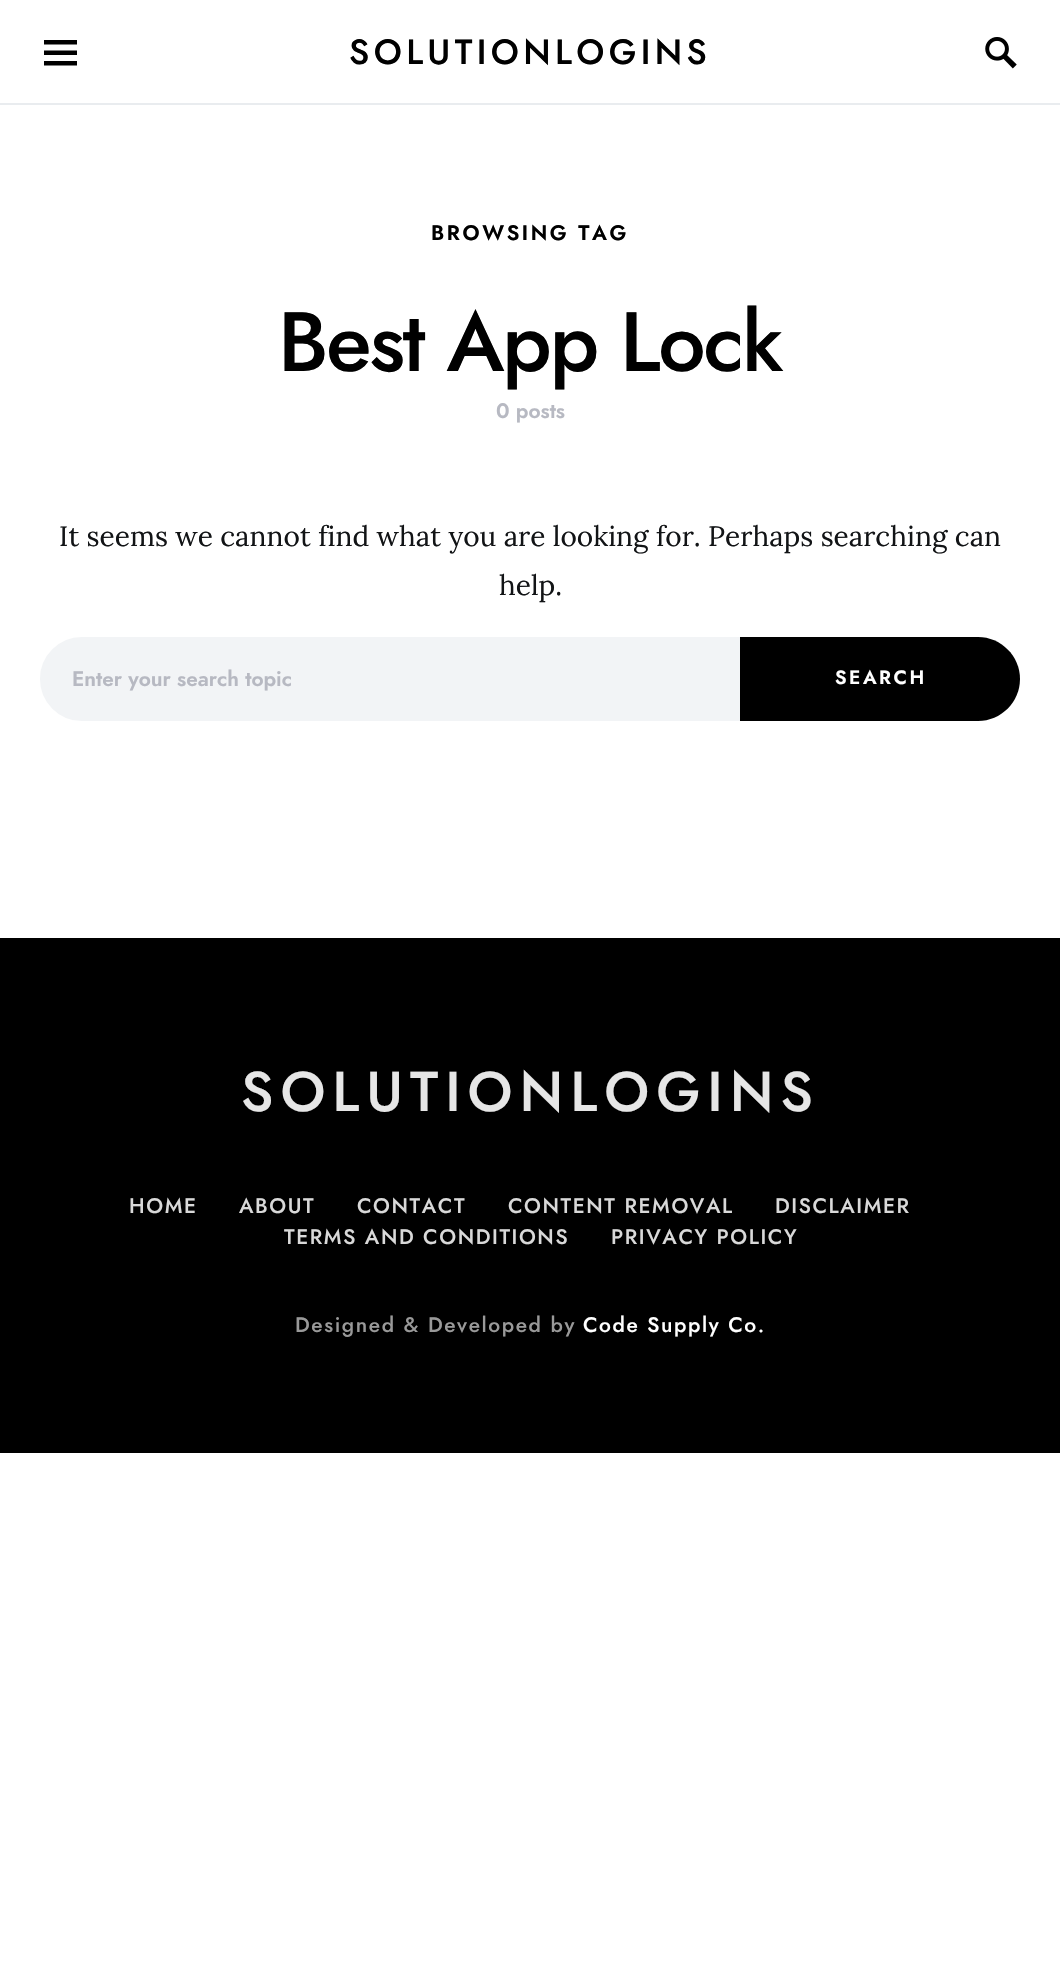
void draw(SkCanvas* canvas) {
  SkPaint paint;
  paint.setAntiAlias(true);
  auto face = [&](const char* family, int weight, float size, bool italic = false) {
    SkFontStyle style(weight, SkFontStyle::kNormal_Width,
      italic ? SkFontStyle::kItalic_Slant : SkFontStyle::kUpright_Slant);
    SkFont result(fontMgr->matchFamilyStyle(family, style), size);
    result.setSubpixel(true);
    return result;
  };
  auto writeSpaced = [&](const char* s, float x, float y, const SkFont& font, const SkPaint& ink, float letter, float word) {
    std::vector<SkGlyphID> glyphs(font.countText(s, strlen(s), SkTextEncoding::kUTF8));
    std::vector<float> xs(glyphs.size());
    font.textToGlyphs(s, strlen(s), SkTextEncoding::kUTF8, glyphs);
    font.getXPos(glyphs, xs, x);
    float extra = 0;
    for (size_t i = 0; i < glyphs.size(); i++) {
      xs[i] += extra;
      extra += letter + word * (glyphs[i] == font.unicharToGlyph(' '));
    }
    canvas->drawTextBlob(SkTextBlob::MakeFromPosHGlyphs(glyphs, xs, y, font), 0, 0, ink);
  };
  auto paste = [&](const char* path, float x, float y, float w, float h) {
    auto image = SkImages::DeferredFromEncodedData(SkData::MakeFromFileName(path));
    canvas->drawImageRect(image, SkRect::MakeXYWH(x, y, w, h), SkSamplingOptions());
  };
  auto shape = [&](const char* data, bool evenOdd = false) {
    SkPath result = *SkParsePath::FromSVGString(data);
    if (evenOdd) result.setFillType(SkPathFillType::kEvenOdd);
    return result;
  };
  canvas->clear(0xffffffff);
  paint.setColor(0xffe9ecef);
  canvas->drawRect(SkRect::MakeXYWH(0, 103, 1060, 2), paint);
  paint.setColor(0xff000000);
  canvas->drawPath(shape("M44 40H77V44.5H44ZM44 50.5H77V55H44ZM44 61H77V65.5H44Z"), paint);
  paste("img/1.png", 985, 37, 32, 32);
  paint.setColor(0xfff2f4f6);
  canvas->drawPath(shape("M82 639H738V719H82C60 719 42 701 42 679C42 657 60 639 82 639Z"), paint);
  paint.setStroke(true);
  paint.setStrokeWidth(4);
  canvas->drawPath(shape("M82 639H738V719H82C60 719 42 701 42 679C42 657 60 639 82 639Z"), paint);
  paint.setStroke(false);
  paint.setColor(0xff000000);
  canvas->drawPath(shape("M740 637H978C1001 637 1020 656 1020 679C1020 702 1001 721 978 721H740Z"), paint);
  canvas->drawRect(SkRect::MakeXYWH(0, 938, 1060, 515), paint);
  auto f0 = face("Jost", 500, 35);
  writeSpaced("SOLUTIONLOGINS", 349, 64, f0, paint, 4.4f, 0);
  auto f1 = face("Jost", 600, 21);
  writeSpaced("BROWSING TAG", 431, 240, f1, paint, 2.6f, 0);
  auto f2 = face("Jost", 500, 84);
  writeSpaced("Best App Lock", 278, 371, f2, paint, -2.1f, 0);
  paint.setColor(0xffb7b9c2);
  canvas->drawString("0 posts", 496, 418, f1, paint);
  auto f3 = face("Lora", 400, 28);
  paint.setColor(0xff121416);
  canvas->drawString("It seems we cannot find what you are looking for. Perhaps searching can", 59, 546, f3, paint);
  canvas->drawString("help.", 499, 595, f3, paint);
  paint.setColor(0xffb7b9c2);
  canvas->drawString("Enter your search topic", 72, 686, f1, paint);
  auto f4 = face("Jost", 600, 19.25f);
  paint.setColor(0xffffffff);
  writeSpaced("SEARCH", 835, 684, f4, paint, 2.5f, 0);
  auto f5 = face("Jost", 500, 56);
  paint.setColor(0xffe6e6e6);
  writeSpaced("SOLUTIONLOGINS", 241, 1111, f5, paint, 7, 0);
  auto f6 = face("Jost", 500, 21);
  paint.setColor(0xffd9d9d9);
  {
    const struct { const char* s; float x, y; } items[] = {
      {"HOME", 129, 1213},
      {"ABOUT", 239, 1213},
      {"CONTACT", 357, 1213},
      {"CONTENT REMOVAL", 508, 1213},
      {"DISCLAIMER", 775, 1213},
      {"TERMS AND CONDITIONS", 284, 1244},
      {"PRIVACY POLICY", 611, 1244},
    };
    for (auto [s, x, y] : items) {
      writeSpaced(s, x, y, f6, paint, 1.6f, 0);
    }
  }
  paint.setColor(0xff999999);
  writeSpaced("Designed & Developed by", 295, 1332, f6, paint, 1.6f, 0);
  paint.setColor(0xffffffff);
  writeSpaced("Code Supply Co.", 583, 1332, f6, paint, 1.6f, 0);
}
